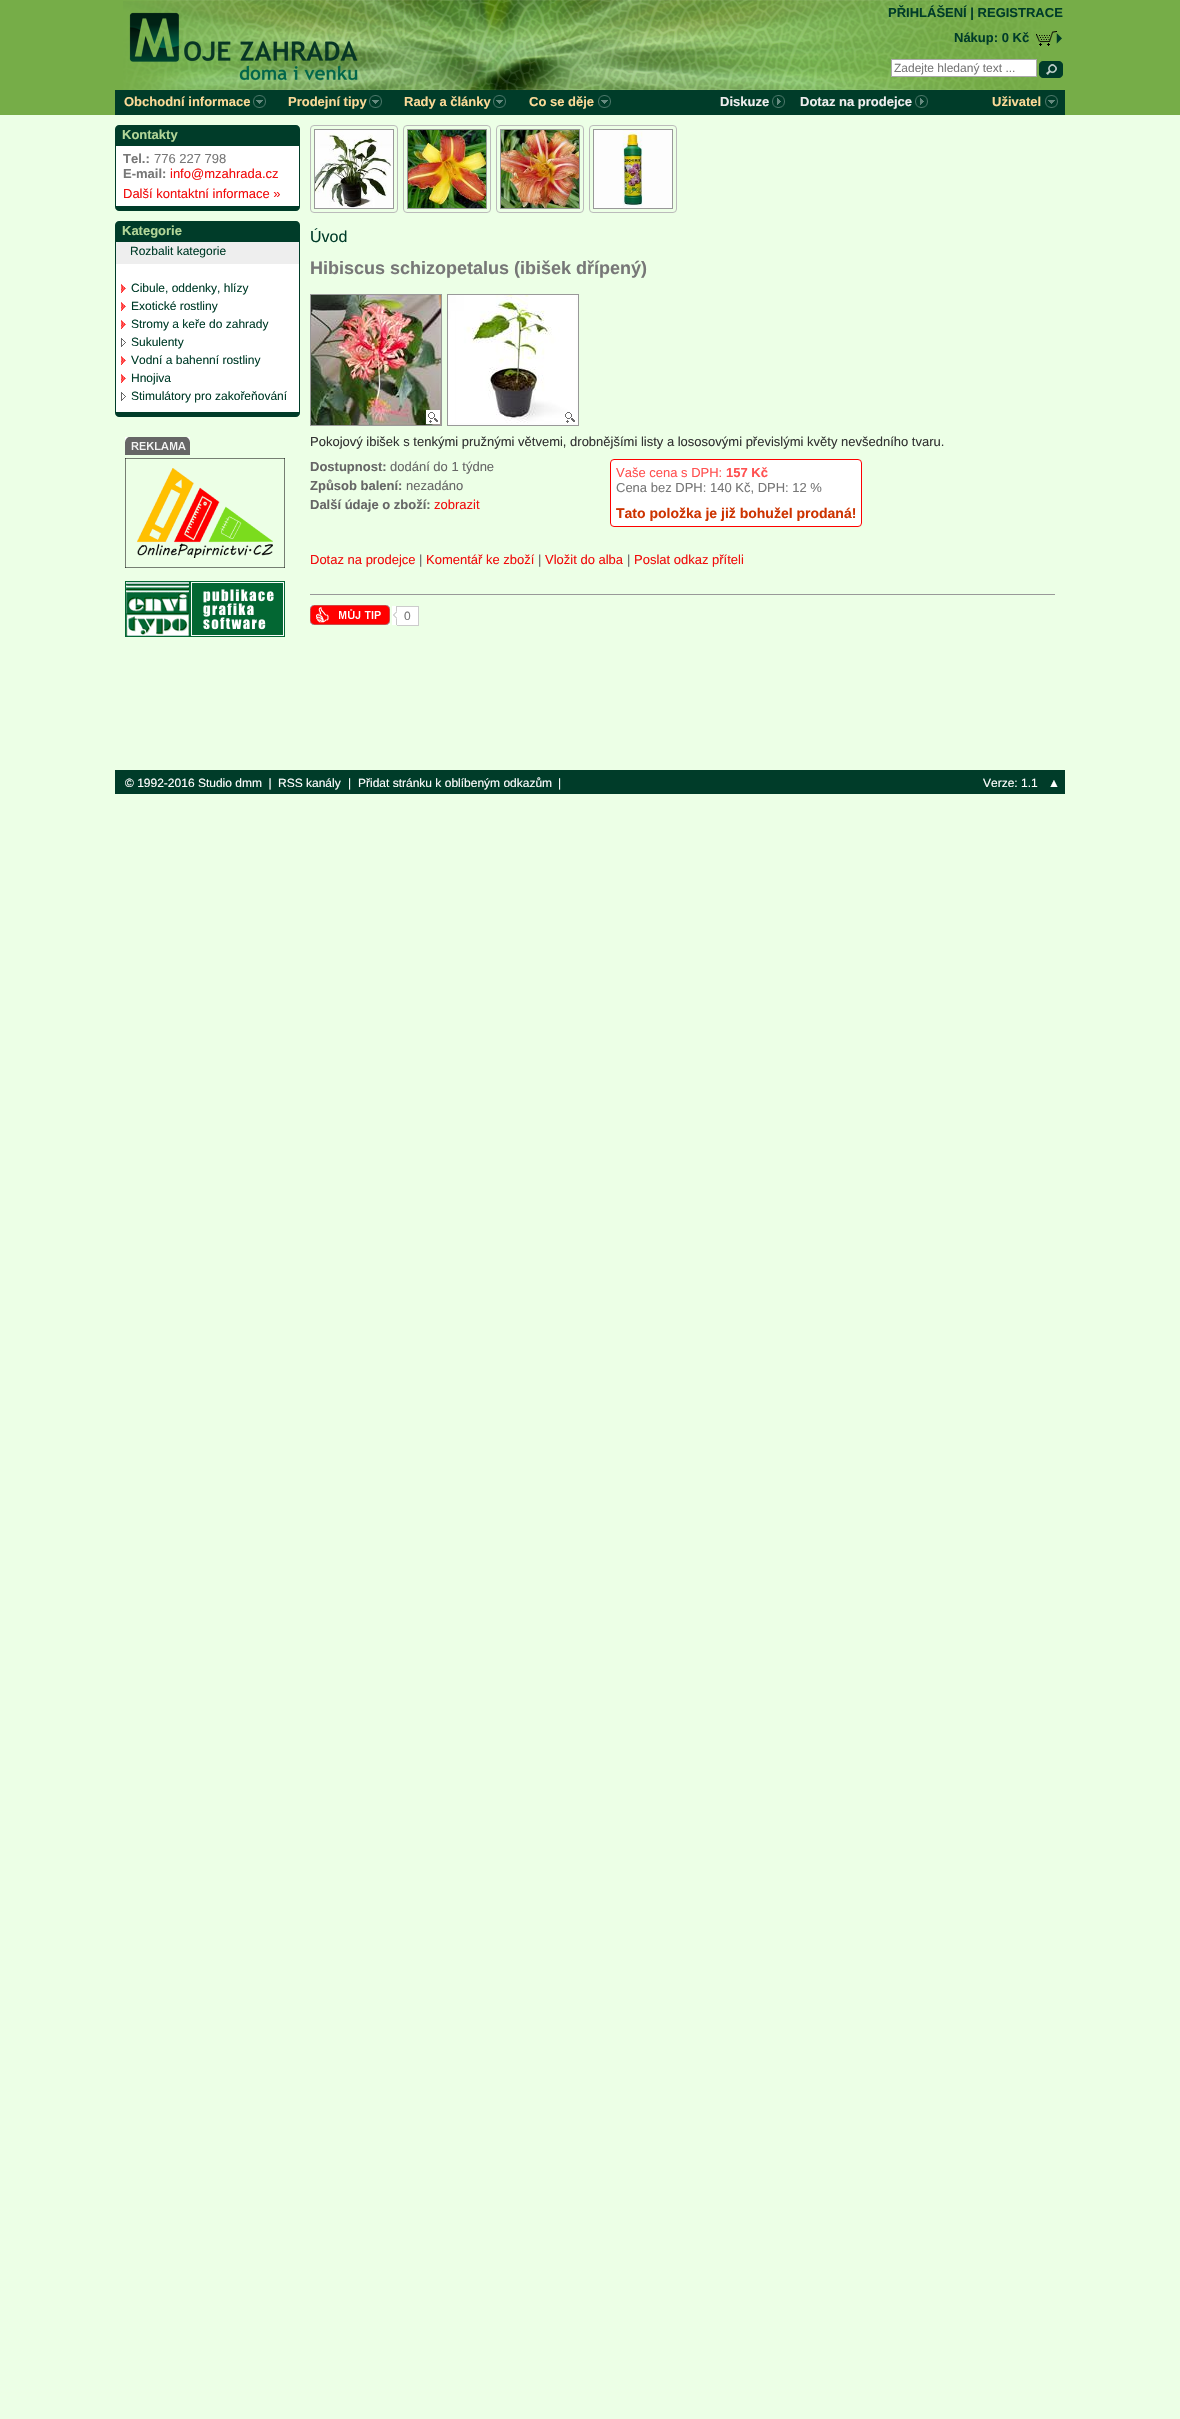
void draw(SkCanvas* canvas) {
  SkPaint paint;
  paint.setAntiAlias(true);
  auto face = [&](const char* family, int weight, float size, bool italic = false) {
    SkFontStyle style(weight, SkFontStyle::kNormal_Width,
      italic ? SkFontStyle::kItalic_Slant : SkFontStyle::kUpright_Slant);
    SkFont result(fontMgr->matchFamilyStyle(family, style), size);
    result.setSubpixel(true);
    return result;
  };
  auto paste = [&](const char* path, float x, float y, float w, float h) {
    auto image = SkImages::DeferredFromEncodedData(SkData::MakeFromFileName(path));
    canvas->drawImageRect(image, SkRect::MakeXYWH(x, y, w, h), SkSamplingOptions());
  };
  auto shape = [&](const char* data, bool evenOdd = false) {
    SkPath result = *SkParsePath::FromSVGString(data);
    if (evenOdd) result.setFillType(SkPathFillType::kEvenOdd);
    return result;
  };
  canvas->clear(0xffecffe6);
  paint.setColor(0xff76ad48);
  canvas->drawRect(SkRect::MakeXYWH(0, 0, 1180, 115), paint);
  paste("img/1.png", 123, 0, 918, 90);
  paste("img/2.png", 1036, 31, 26, 15);
  paint.setColor(0xffffffff);
  canvas->drawRect(SkRect::MakeXYWH(891.5f, 59.5f, 145, 17), paint);
  paint.setStroke(true);
  paint.setStrokeWidth(1);
  paint.setColor(0xffaaaaaa);
  canvas->drawRect(SkRect::MakeXYWH(891.5f, 59.5f, 145, 17), paint);
  paste("img/3.png", 1039, 61, 24, 17);
  paint.setStroke(false);
  paint.setColor(0xff003c29);
  canvas->drawRect(SkRect::MakeXYWH(115, 90, 950, 25), paint);
  paste("img/4.png", 253, 95, 13, 13);
  paste("img/4.png", 369, 95, 13, 13);
  paste("img/4.png", 493, 95, 13, 13);
  paste("img/4.png", 598, 95, 13, 13);
  paste("img/5.png", 772, 95, 13, 13);
  paste("img/5.png", 915, 95, 13, 13);
  paste("img/4.png", 1045, 95, 13, 13);
  canvas->drawPath(shape("M119 125H296C298 125 300 127 300 129V146H115V129C115 127 117 125 119 125Z"), paint);
  {
    const struct { float x, y, w, h; SkColor color; } items[] = {
      {116, 146, 183, 60, 0xffffffff},
      {299, 146, 1, 60, 0xff003c29},
      {115, 146, 1, 60, 0xff003c29},
    };
    for (auto [x, y, w, h, color] : items) {
      paint.setColor(color);
      canvas->drawRect(SkRect::MakeXYWH(x, y, w, h), paint);
    }
  }
  canvas->drawPath(shape("M115 206H300V207C300 209 298 211 296 211H119C117 211 115 209 115 207Z"), paint);
  canvas->drawPath(shape("M119 221H296C298 221 300 223 300 225V242H115V225C115 223 117 221 119 221Z"), paint);
  {
    const struct { float x, y, w, h; SkColor color; } items[] = {
      {116, 264, 183, 148, 0xffffffff},
      {299, 242, 1, 170, 0xff003c29},
      {115, 242, 1, 170, 0xff003c29},
      {116, 242, 183, 22, 0xffeeeeee},
    };
    for (auto [x, y, w, h, color] : items) {
      paint.setColor(color);
      canvas->drawRect(SkRect::MakeXYWH(x, y, w, h), paint);
    }
  }
  paste("img/6.png", 121, 284, 5, 9);
  paste("img/6.png", 121, 302, 5, 9);
  paste("img/6.png", 121, 320, 5, 9);
  paste("img/7.png", 121, 338, 5, 9);
  paste("img/6.png", 121, 356, 5, 9);
  paste("img/6.png", 121, 374, 5, 9);
  paste("img/7.png", 121, 392, 5, 9);
  paint.setColor(0xff003c29);
  canvas->drawPath(shape("M115 412H300V413C300 415 298 417 296 417H119C117 417 115 415 115 413Z"), paint);
  paste("img/8.png", 125, 437, 65, 18);
  paste("img/9.png", 125, 458, 160, 110);
  paste("img/10.png", 125, 581, 160, 56);
  paint.setStroke(true);
  paint.setColor(0xffbbbbbb);
  canvas->drawRoundRect(SkRect::MakeXYWH(310.5f, 125.5f, 87, 87), 3.5f, 3.5f, paint);
  paint.setColor(0xff999999);
  canvas->drawRect(SkRect::MakeXYWH(314.5f, 129.5f, 79, 79), paint);
  paste("img/11.png", 315, 130, 78, 78);
  paint.setColor(0xffbbbbbb);
  canvas->drawRoundRect(SkRect::MakeXYWH(403.5f, 125.5f, 87, 87), 3.5f, 3.5f, paint);
  paint.setColor(0xff999999);
  canvas->drawRect(SkRect::MakeXYWH(407.5f, 129.5f, 79, 79), paint);
  paste("img/12.png", 408, 130, 78, 78);
  paint.setColor(0xffbbbbbb);
  canvas->drawRoundRect(SkRect::MakeXYWH(496.5f, 125.5f, 87, 87), 3.5f, 3.5f, paint);
  paint.setColor(0xff999999);
  canvas->drawRect(SkRect::MakeXYWH(500.5f, 129.5f, 79, 79), paint);
  paste("img/13.png", 501, 130, 78, 78);
  paint.setColor(0xffbbbbbb);
  canvas->drawRoundRect(SkRect::MakeXYWH(589.5f, 125.5f, 87, 87), 3.5f, 3.5f, paint);
  paint.setColor(0xff999999);
  canvas->drawRect(SkRect::MakeXYWH(593.5f, 129.5f, 79, 79), paint);
  paste("img/14.png", 594, 130, 78, 78);
  canvas->drawRect(SkRect::MakeXYWH(310.5f, 294.5f, 131, 131), paint);
  paste("img/15.png", 311, 295, 130, 130);
  paste("img/16.png", 426, 410, 14, 14);
  canvas->drawRect(SkRect::MakeXYWH(447.5f, 294.5f, 131, 131), paint);
  paste("img/17.png", 448, 295, 130, 130);
  paste("img/18.png", 565, 412, 10, 11);
  paint.setStroke(false);
  paint.setColor(0xffffffff);
  canvas->drawRoundRect(SkRect::MakeXYWH(610.5f, 459.5f, 251, 67), 3.5f, 3.5f, paint);
  paint.setStroke(true);
  paint.setColor(0xffff0000);
  canvas->drawRoundRect(SkRect::MakeXYWH(610.5f, 459.5f, 251, 67), 3.5f, 3.5f, paint);
  paint.setStroke(false);
  paint.setColor(0xff999999);
  canvas->drawRect(SkRect::MakeXYWH(310, 594, 745, 1), paint);
  paste("img/19.png", 310, 605, 80, 20);
  paste("img/20.png", 392, 606, 5, 19);
  {
    const struct { float x, y, w, h; SkColor color; } items[] = {
      {397, 607, 21, 18, 0xffffffff},
      {397, 606, 22, 1, 0xffcccccc},
      {418, 606, 1, 20, 0xffcccccc},
      {397, 625, 22, 1, 0xffcccccc},
      {115, 770, 950, 24, 0xff003c29},
    };
    for (auto [x, y, w, h, color] : items) {
      paint.setColor(color);
      canvas->drawRect(SkRect::MakeXYWH(x, y, w, h), paint);
    }
  }
  auto f0 = face("Liberation Sans", 700, 13);
  canvas->drawString("PŘIHLÁŠENÍ | REGISTRACE", 888, 17, f0, paint);
  canvas->drawString("Nákup: 0 Kč", 954, 42, f0, paint);
  auto f1 = face("Liberation Sans", 400, 12);
  paint.setColor(0xff777777);
  canvas->drawString("Zadejte hledaný text ...", 894, 72, f1, paint);
  paint.setColor(0xfffbda97);
  {
    const struct { const char* s; float x, y; } items[] = {
      {"Obchodní informace", 124, 106},
      {"Prodejní tipy", 288, 106},
      {"Rady a články", 404, 106},
      {"Co se děje", 529, 106},
    };
    for (auto [s, x, y] : items) {
      canvas->drawString(s, x, y, f0, paint);
    }
  }
  paint.setColor(0xffeeeeee);
  canvas->drawString("Diskuze", 720, 106, f0, paint);
  canvas->drawString("Dotaz na prodejce", 800, 106, f0, paint);
  paint.setColor(0xfffbda97);
  canvas->drawString("Uživatel", 992, 106, f0, paint);
  paint.setColor(0xffb3d698);
  canvas->drawString("Kontakty", 122, 139, f0, paint);
  paint.setColor(0xff777777);
  canvas->drawString("Tel.:", 123, 163, f0, paint);
  auto f2 = face("Liberation Sans", 400, 13);
  canvas->drawString("776 227 798", 154, 163, f2, paint);
  canvas->drawString("E-mail:", 123, 178, f0, paint);
  paint.setColor(0xfff10d0d);
  canvas->drawString("info@mzahrada.cz", 170, 178, f2, paint);
  canvas->drawString("Další kontaktní informace »", 123, 198, f2, paint);
  paint.setColor(0xffb3d698);
  canvas->drawString("Kategorie", 122, 235, f0, paint);
  paint.setColor(0xff003c29);
  {
    const struct { const char* s; float x, y; } items[] = {
      {"Rozbalit kategorie", 130, 255},
      {"Cibule, oddenky, hlízy", 131, 292},
      {"Exotické rostliny", 131, 310},
      {"Stromy a keře do zahrady", 131, 328},
      {"Sukulenty", 131, 346},
      {"Vodní a bahenní rostliny", 131, 364},
      {"Hnojiva", 131, 382},
      {"Stimulátory pro zakořeňování", 131, 400},
    };
    for (auto [s, x, y] : items) {
      canvas->drawString(s, x, y, f1, paint);
    }
  }
  auto f3 = face("Liberation Sans", 400, 16);
  canvas->drawString("Úvod", 310, 242, f3, paint);
  auto f4 = face("Liberation Sans", 700, 18);
  paint.setColor(0xff777777);
  canvas->drawString("Hibiscus schizopetalus (ibišek dřípený)", 310, 274, f4, paint);
  paint.setColor(0xff333333);
  canvas->drawString("Pokojový ibišek s tenkými pružnými větvemi, drobnějšími listy a lososovými převislými květy nevšedního tvaru.", 310, 446, f2, paint);
  paint.setColor(0xff666666);
  canvas->drawString("Dostupnost:", 310, 471, f0, paint);
  canvas->drawString("dodání do 1 týdne", 390, 471, f2, paint);
  canvas->drawString("Způsob balení:", 310, 490, f0, paint);
  canvas->drawString("nezadáno", 406, 490, f2, paint);
  canvas->drawString("Další údaje o zboží:", 310, 509, f0, paint);
  paint.setColor(0xfff10d0d);
  canvas->drawString("zobrazit", 434, 509, f2, paint);
  paint.setColor(0xffff5050);
  canvas->drawString("Vaše cena s DPH:", 616, 477, f2, paint);
  canvas->drawString("157 Kč", 726, 477, f0, paint);
  paint.setColor(0xff777777);
  canvas->drawString("Cena bez DPH: 140 Kč, DPH: 12 %", 616, 492, f2, paint);
  auto f5 = face("Liberation Sans", 700, 14);
  paint.setColor(0xffcd3300);
  canvas->drawString("Tato položka je již bohužel prodaná!", 616, 518, f5, paint);
  paint.setColor(0xfff10d0d);
  canvas->drawString("Dotaz na prodejce", 310, 564, f2, paint);
  paint.setColor(0xff666666);
  canvas->drawString("|", 419, 564, f2, paint);
  paint.setColor(0xfff10d0d);
  canvas->drawString("Komentář ke zboží", 426, 564, f2, paint);
  paint.setColor(0xff666666);
  canvas->drawString("|", 538, 564, f2, paint);
  paint.setColor(0xfff10d0d);
  canvas->drawString("Vložit do alba", 545, 564, f2, paint);
  paint.setColor(0xff666666);
  canvas->drawString("|", 627, 564, f2, paint);
  paint.setColor(0xfff10d0d);
  canvas->drawString("Poslat odkaz příteli", 634, 564, f2, paint);
  paint.setColor(0xff777777);
  canvas->drawString("0", 404, 620, f1, paint);
  paint.setColor(0xffffffff);
  {
    const struct { const char* s; float x, y; } items[] = {
      {"© 1992-2016 Studio dmm  |", 125, 787},
      {"RSS kanály", 278, 787},
      {"|", 348, 787},
      {"Přidat stránku k oblíbeným odkazům", 358, 787},
      {"|", 558, 787},
      {"Verze: 1.1", 983, 787},
      {"▲", 1048, 787},
    };
    for (auto [s, x, y] : items) {
      canvas->drawString(s, x, y, f1, paint);
    }
  }
}
